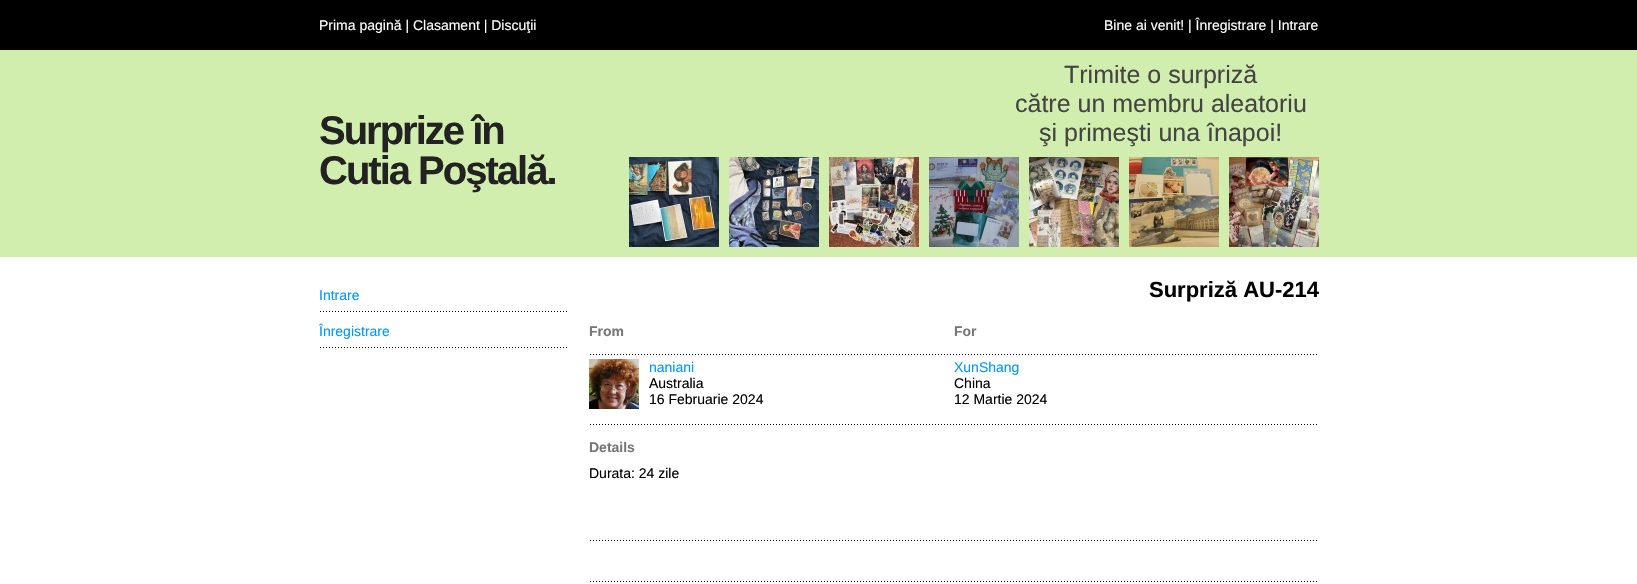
void draw(SkCanvas* canvas) {
  SkPaint paint;
  paint.setAntiAlias(true);
  auto face = [&](const char* family, int weight, float size, bool italic = false) {
    SkFontStyle style(weight, SkFontStyle::kNormal_Width,
      italic ? SkFontStyle::kItalic_Slant : SkFontStyle::kUpright_Slant);
    SkFont result(fontMgr->matchFamilyStyle(family, style), size);
    result.setSubpixel(true);
    return result;
  };
  auto writeSpaced = [&](const char* s, float x, float y, const SkFont& font, const SkPaint& ink, float letter, float word) {
    std::vector<SkGlyphID> glyphs(font.countText(s, strlen(s), SkTextEncoding::kUTF8));
    std::vector<float> xs(glyphs.size());
    font.textToGlyphs(s, strlen(s), SkTextEncoding::kUTF8, glyphs);
    font.getXPos(glyphs, xs, x);
    float extra = 0;
    for (size_t i = 0; i < glyphs.size(); i++) {
      xs[i] += extra;
      extra += letter + word * (glyphs[i] == font.unicharToGlyph(' '));
    }
    canvas->drawTextBlob(SkTextBlob::MakeFromPosHGlyphs(glyphs, xs, y, font), 0, 0, ink);
  };
  auto paste = [&](const char* path, float x, float y, float w, float h) {
    auto image = SkImages::DeferredFromEncodedData(SkData::MakeFromFileName(path));
    canvas->drawImageRect(image, SkRect::MakeXYWH(x, y, w, h), SkSamplingOptions());
  };
  canvas->clear(0xffffffff);
  paint.setColor(0xff000000);
  canvas->drawRect(SkRect::MakeXYWH(0, 0, 1637, 50), paint);
  paint.setColor(0xffd2eeae);
  canvas->drawRect(SkRect::MakeXYWH(0, 50, 1637, 207), paint);
  paste("img/1.png", 629, 157, 90, 90);
  paste("img/2.png", 729, 157, 90, 90);
  paste("img/3.png", 829, 157, 90, 90);
  paste("img/4.png", 929, 157, 90, 90);
  paste("img/5.png", 1029, 157, 90, 90);
  paste("img/6.png", 1129, 157, 90, 90);
  paste("img/7.png", 1229, 157, 90, 90);
  paste("img/8.png", 320, 311, 247, 1);
  paste("img/8.png", 320, 347, 247, 1);
  paste("img/9.png", 590, 354, 727, 1);
  paste("img/10.png", 589, 359, 50, 50);
  paste("img/9.png", 590, 424, 727, 1);
  paste("img/9.png", 590, 540, 727, 1);
  paste("img/9.png", 590, 581, 727, 1);
  auto f0 = face("Liberation Sans", 400, 14);
  paint.setColor(0xffffffff);
  canvas->drawString("Prima pagină | Clasament | Discuţii", 319, 30, f0, paint);
  canvas->drawString("Bine ai venit! | Înregistrare | Intrare", 1104, 30, f0, paint);
  auto f1 = face("Liberation Sans", 700, 40);
  paint.setColor(0xff222222);
  writeSpaced("Surprize în", 319, 144, f1, paint, -2, 0);
  writeSpaced("Cutia Poştală.", 319, 184, f1, paint, -2, 0);
  auto f2 = face("Liberation Sans", 400, 25);
  paint.setColor(0xff444444);
  {
    const struct { const char* s; float x, y; } items[] = {
      {"Trimite o surpriză", 1064, 83},
      {"către un membru aleatoriu", 1015, 112},
      {"şi primeşti una înapoi!", 1039, 141},
    };
    for (auto [s, x, y] : items) {
      canvas->drawString(s, x, y, f2, paint);
    }
  }
  paint.setColor(0xff0096ff);
  canvas->drawString("Intrare", 319, 300, f0, paint);
  canvas->drawString("Înregistrare", 319, 336, f0, paint);
  auto f3 = face("Liberation Sans", 700, 22);
  paint.setColor(0xff000000);
  canvas->drawString("Surpriză AU-214", 1149, 297, f3, paint);
  auto f4 = face("Liberation Sans", 700, 14);
  paint.setColor(0xff777777);
  canvas->drawString("From", 589, 336, f4, paint);
  canvas->drawString("For", 954, 336, f4, paint);
  paint.setColor(0xff0096ff);
  canvas->drawString("naniani", 649, 372, f0, paint);
  paint.setColor(0xff000000);
  canvas->drawString("Australia", 649, 388, f0, paint);
  canvas->drawString("16 Februarie 2024", 649, 404, f0, paint);
  paint.setColor(0xff0096ff);
  canvas->drawString("XunShang", 954, 372, f0, paint);
  paint.setColor(0xff000000);
  canvas->drawString("China", 954, 388, f0, paint);
  canvas->drawString("12 Martie 2024", 954, 404, f0, paint);
  paint.setColor(0xff777777);
  canvas->drawString("Details", 589, 452, f4, paint);
  paint.setColor(0xff000000);
  canvas->drawString("Durata: 24 zile", 589, 478, f0, paint);
}
